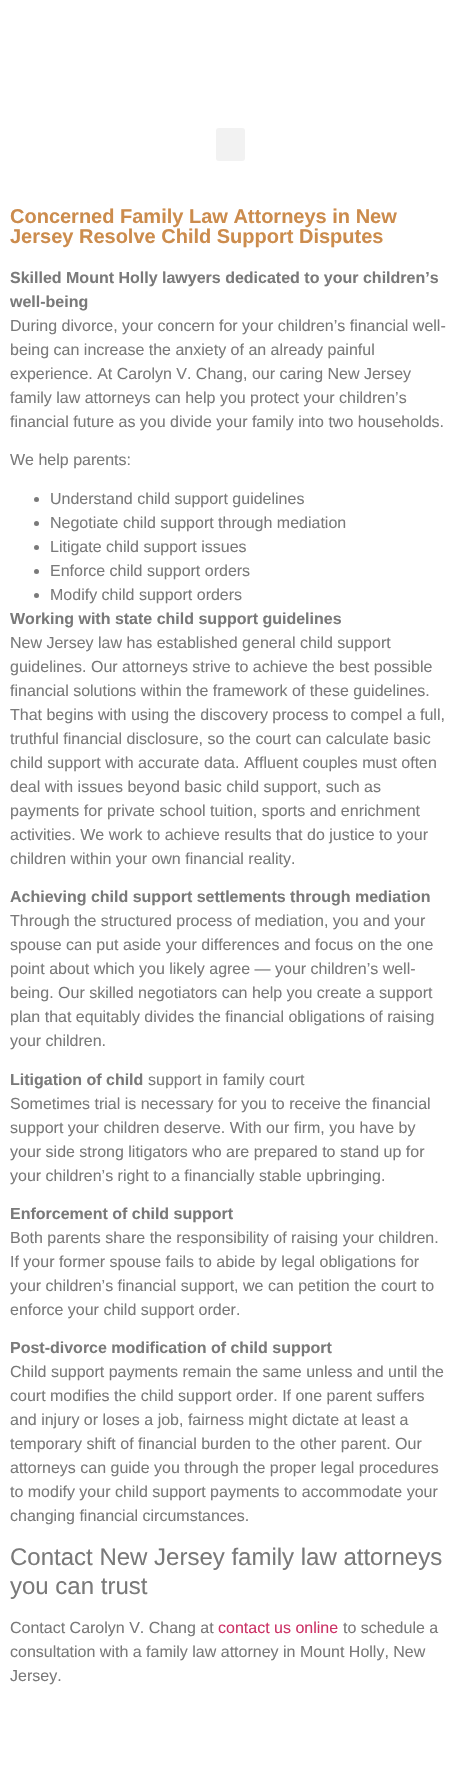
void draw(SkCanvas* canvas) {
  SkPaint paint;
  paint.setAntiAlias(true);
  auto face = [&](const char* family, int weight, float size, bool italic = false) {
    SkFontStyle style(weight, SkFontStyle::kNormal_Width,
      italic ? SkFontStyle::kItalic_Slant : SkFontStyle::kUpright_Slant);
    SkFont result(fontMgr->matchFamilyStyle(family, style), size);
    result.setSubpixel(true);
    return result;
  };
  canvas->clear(0xffffffff);
  paint.setColor(0xfff2f2f2);
  canvas->drawRoundRect(SkRect::MakeXYWH(216, 128, 29, 33), 3, 3, paint);
  paint.setColor(0xff7a7a7a);
  canvas->drawCircle(36.5f, 499.5f, 2.5f, paint);
  canvas->drawCircle(36.5f, 523.5f, 2.5f, paint);
  canvas->drawCircle(36.5f, 547.5f, 2.5f, paint);
  canvas->drawCircle(36.5f, 571.5f, 2.5f, paint);
  canvas->drawCircle(36.5f, 595.5f, 2.5f, paint);
  auto f0 = face("Liberation Sans", 700, 20);
  paint.setColor(0xffcc8c4d);
  canvas->drawString("Concerned Family Law Attorneys in New", 10, 223, f0, paint);
  canvas->drawString("Jersey Resolve Child Support Disputes", 10, 243, f0, paint);
  auto f1 = face("Liberation Sans", 700, 16);
  paint.setColor(0xff7a7a7a);
  canvas->drawString("Skilled Mount Holly lawyers dedicated to your children’s", 10, 283, f1, paint);
  canvas->drawString("well-being", 10, 307, f1, paint);
  auto f2 = face("Liberation Sans", 400, 16);
  {
    const struct { const char* s; float x, y; } items[] = {
      {"During divorce, your concern for your children’s financial well-", 10, 331},
      {"being can increase the anxiety of an already painful", 10, 355},
      {"experience. At Carolyn V. Chang, our caring New Jersey", 10, 379},
      {"family law attorneys can help you protect your children’s", 10, 403},
      {"financial future as you divide your family into two households.", 10, 427},
      {"We help parents:", 10, 465},
      {"Understand child support guidelines", 50, 504},
      {"Negotiate child support through mediation", 50, 528},
      {"Litigate child support issues", 50, 552},
      {"Enforce child support orders", 50, 576},
      {"Modify child support orders", 50, 600},
    };
    for (auto [s, x, y] : items) {
      canvas->drawString(s, x, y, f2, paint);
    }
  }
  canvas->drawString("Working with state child support guidelines", 10, 624, f1, paint);
  {
    const struct { const char* s; float x, y; } items[] = {
      {"New Jersey law has established general child support", 10, 648},
      {"guidelines. Our attorneys strive to achieve the best possible", 10, 672},
      {"financial solutions within the framework of these guidelines.", 10, 696},
      {"That begins with using the discovery process to compel a full,", 10, 720},
      {"truthful financial disclosure, so the court can calculate basic", 10, 744},
      {"child support with accurate data. Affluent couples must often", 10, 768},
      {"deal with issues beyond basic child support, such as", 10, 792},
      {"payments for private school tuition, sports and enrichment", 10, 816},
      {"activities. We work to achieve results that do justice to your", 10, 840},
      {"children within your own financial reality.", 10, 864},
    };
    for (auto [s, x, y] : items) {
      canvas->drawString(s, x, y, f2, paint);
    }
  }
  canvas->drawString("Achieving child support settlements through mediation", 10, 902, f1, paint);
  {
    const struct { const char* s; float x, y; } items[] = {
      {"Through the structured process of mediation, you and your", 10, 926},
      {"spouse can put aside your differences and focus on the one", 10, 950},
      {"point about which you likely agree — your children’s well-", 10, 974},
      {"being. Our skilled negotiators can help you create a support", 10, 998},
      {"plan that equitably divides the financial obligations of raising", 10, 1022},
      {"your children.", 10, 1046},
    };
    for (auto [s, x, y] : items) {
      canvas->drawString(s, x, y, f2, paint);
    }
  }
  canvas->drawString("Litigation of child", 10, 1085, f1, paint);
  {
    const struct { const char* s; float x, y; } items[] = {
      {"support in family court", 148, 1085},
      {"Sometimes trial is necessary for you to receive the financial", 10, 1109},
      {"support your children deserve. With our firm, you have by", 10, 1133},
      {"your side strong litigators who are prepared to stand up for", 10, 1157},
      {"your children’s right to a financially stable upbringing.", 10, 1181},
    };
    for (auto [s, x, y] : items) {
      canvas->drawString(s, x, y, f2, paint);
    }
  }
  canvas->drawString("Enforcement of child support", 10, 1219, f1, paint);
  {
    const struct { const char* s; float x, y; } items[] = {
      {"Both parents share the responsibility of raising your children.", 10, 1243},
      {"If your former spouse fails to abide by legal obligations for", 10, 1267},
      {"your children’s financial support, we can petition the court to", 10, 1291},
      {"enforce your child support order.", 10, 1315},
    };
    for (auto [s, x, y] : items) {
      canvas->drawString(s, x, y, f2, paint);
    }
  }
  canvas->drawString("Post-divorce modification of child support", 10, 1353, f1, paint);
  {
    const struct { const char* s; float x, y; } items[] = {
      {"Child support payments remain the same unless and until the", 10, 1377},
      {"court modifies the child support order. If one parent suffers", 10, 1401},
      {"and injury or loses a job, fairness might dictate at least a", 10, 1425},
      {"temporary shift of financial burden to the other parent. Our", 10, 1449},
      {"attorneys can guide you through the proper legal procedures", 10, 1473},
      {"to modify your child support payments to accommodate your", 10, 1497},
      {"changing financial circumstances.", 10, 1521},
    };
    for (auto [s, x, y] : items) {
      canvas->drawString(s, x, y, f2, paint);
    }
  }
  auto f3 = face("Liberation Sans", 400, 24);
  canvas->drawString("Contact New Jersey family law attorneys", 10, 1565, f3, paint);
  canvas->drawString("you can trust", 10, 1594, f3, paint);
  canvas->drawString("Contact Carolyn V. Chang at", 10, 1633, f2, paint);
  paint.setColor(0xffcc3366);
  canvas->drawString("contact us online", 218, 1633, f2, paint);
  paint.setColor(0xff7a7a7a);
  {
    const struct { const char* s; float x, y; } items[] = {
      {"to schedule a", 343, 1633},
      {"consultation with a family law attorney in Mount Holly, New", 10, 1657},
      {"Jersey.", 10, 1681},
    };
    for (auto [s, x, y] : items) {
      canvas->drawString(s, x, y, f2, paint);
    }
  }
}
